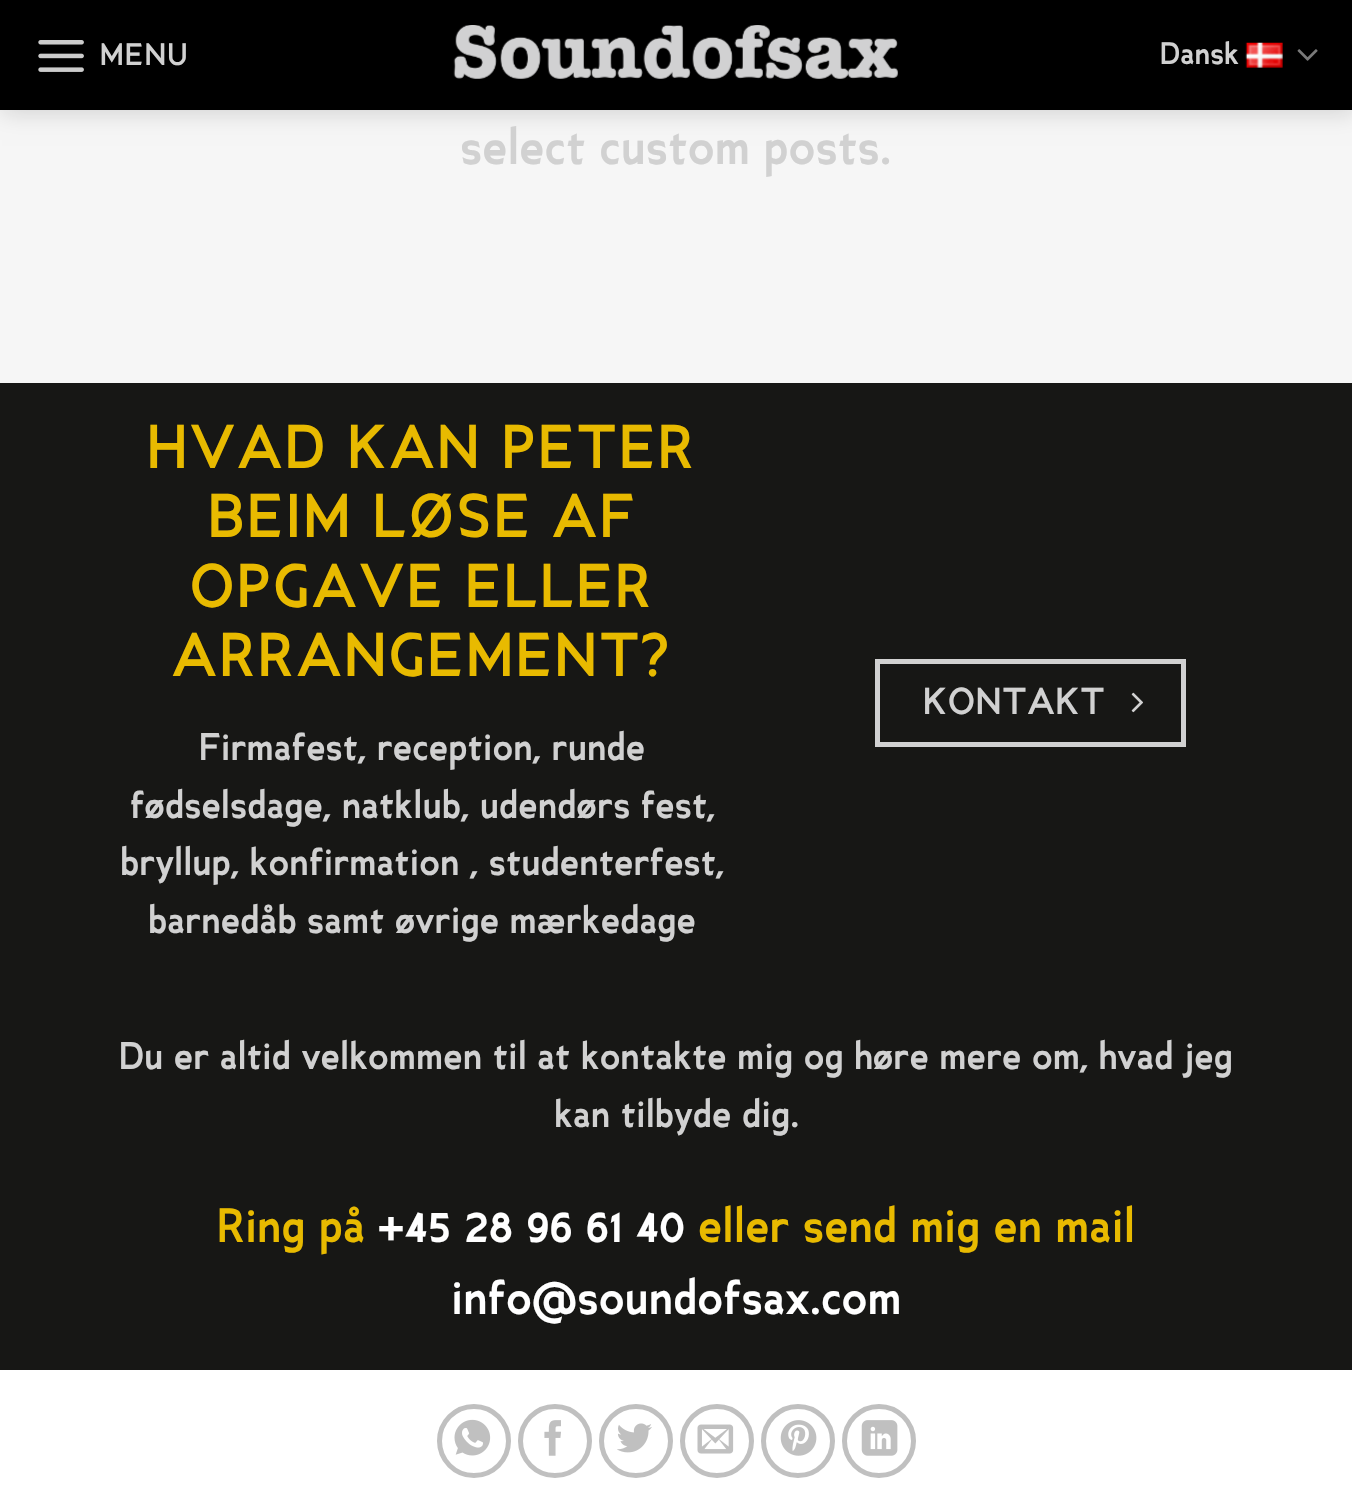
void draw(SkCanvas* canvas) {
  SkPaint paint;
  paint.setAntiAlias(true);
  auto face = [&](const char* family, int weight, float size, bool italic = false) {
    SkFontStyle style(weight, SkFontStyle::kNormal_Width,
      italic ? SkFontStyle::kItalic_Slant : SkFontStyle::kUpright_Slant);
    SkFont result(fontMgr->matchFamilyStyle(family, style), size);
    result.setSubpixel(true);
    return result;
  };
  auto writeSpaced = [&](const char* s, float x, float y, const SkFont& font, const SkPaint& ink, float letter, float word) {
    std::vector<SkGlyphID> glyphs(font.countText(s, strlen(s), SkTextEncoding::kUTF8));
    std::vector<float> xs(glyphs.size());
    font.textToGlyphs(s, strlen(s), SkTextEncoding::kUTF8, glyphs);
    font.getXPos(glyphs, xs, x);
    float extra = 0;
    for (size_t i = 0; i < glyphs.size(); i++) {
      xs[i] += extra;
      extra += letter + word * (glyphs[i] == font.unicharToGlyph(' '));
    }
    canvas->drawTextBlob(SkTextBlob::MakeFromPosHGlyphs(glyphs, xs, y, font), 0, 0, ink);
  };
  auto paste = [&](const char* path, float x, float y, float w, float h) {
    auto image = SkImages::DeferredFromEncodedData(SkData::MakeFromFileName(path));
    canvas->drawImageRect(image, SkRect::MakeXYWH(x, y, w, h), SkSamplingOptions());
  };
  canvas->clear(0xffffffff);
  paint.setColor(0xfff6f6f6);
  canvas->drawRect(SkRect::MakeXYWH(0, 110, 1352, 273), paint);
  paint.setColor(0x26000000);
  paint.setMaskFilter(SkMaskFilter::MakeBlur(kNormal_SkBlurStyle, 11));
  canvas->drawRect(SkRect::MakeXYWH(2, 2, 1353, 111), paint);
  paint.setMaskFilter(nullptr);
  paint.setColor(0xff000000);
  canvas->drawRect(SkRect::MakeXYWH(0, 0, 1352, 110), paint);
  paste("img/1.png", 38, 40, 46, 32);
  paste("img/2.png", 453, 25, 445, 54);
  paste("img/3.png", 1245, 42, 38, 26);
  paste("img/4.png", 1297, 49, 21, 12);
  paint.setColor(0xff171715);
  canvas->drawRect(SkRect::MakeXYWH(0, 383, 1352, 987), paint);
  paint.setStroke(true);
  paint.setStrokeWidth(5);
  paint.setColor(0xffd1d1d1);
  canvas->drawRect(SkRect::MakeXYWH(877.5f, 661.5f, 306, 83), paint);
  paste("img/5.png", 1131, 692, 12, 21);
  paint.setColor(0xffc0c0c0);
  canvas->drawCircle(474, 1441, 34.5f, paint);
  paste("img/6.png", 454, 1419, 37, 37);
  canvas->drawCircle(555, 1441, 34.5f, paint);
  paste("img/7.png", 544, 1420, 17, 36);
  canvas->drawCircle(636, 1441, 34.5f, paint);
  paste("img/8.png", 617, 1423, 35, 30);
  canvas->drawCircle(717, 1441, 34.5f, paint);
  paste("img/9.png", 697, 1424, 37, 30);
  canvas->drawCircle(798, 1441, 34.5f, paint);
  paste("img/10.png", 780, 1420, 37, 36);
  canvas->drawCircle(879, 1441, 34.5f, paint);
  paste("img/11.png", 861, 1420, 37, 36);
  auto f0 = face("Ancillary", 700, 29);
  paint.setStroke(false);
  paint.setColor(0xffd1d1d1);
  writeSpaced("MENU", 100, 65, f0, paint, 1.5f, 0);
  canvas->drawString("Dansk", 1160, 64, f0, paint);
  auto f1 = face("Ancillary", 700, 46.75f);
  canvas->drawString("select custom posts.", 460, 164, f1, paint);
  auto f2 = face("Ancillary", 700, 57.5f);
  paint.setColor(0xffe8ba00);
  {
    const struct { const char* s; float x, y; } items[] = {
      {"HVAD KAN PETER", 147, 468},
      {"BEIM LØSE AF", 208, 537},
      {"OPGAVE ELLER", 190, 607},
      {"ARRANGEMENT?", 172, 676},
    };
    for (auto [s, x, y] : items) {
      writeSpaced(s, x, y, f2, paint, 2.9f, 0);
    }
  }
  auto f3 = face("Ancillary", 700, 36);
  paint.setColor(0xffd1d1d1);
  {
    const struct { const char* s; float x, y; } items[] = {
      {"Firmafest, reception, runde", 199, 760},
      {"fødselsdage, natklub, udendørs fest,", 130, 818},
      {"bryllup, konfirmation , studenterfest,", 120, 875},
      {"barnedåb samt øvrige mærkedage", 148, 933},
    };
    for (auto [s, x, y] : items) {
      canvas->drawString(s, x, y, f3, paint);
    }
  }
  auto f4 = face("Ancillary", 700, 35);
  writeSpaced("KONTAKT", 923, 714, f4, paint, 1, 0);
  canvas->drawString("Du er altid velkommen til at kontakte mig og høre mere om, hvad jeg", 119, 1069, f3, paint);
  canvas->drawString("kan tilbyde dig.", 554, 1127, f3, paint);
  auto f5 = face("Ancillary", 700, 45);
  paint.setColor(0xffe8ba00);
  canvas->drawString("Ring på", 217, 1242, f5, paint);
  paint.setColor(0xffffffff);
  canvas->drawString("+45 28 96 61 40", 378, 1242, f5, paint);
  paint.setColor(0xffe8ba00);
  canvas->drawString("eller send mig en mail", 698, 1242, f5, paint);
  paint.setColor(0xffffffff);
  canvas->drawString("info@soundofsax.com", 451, 1314, f5, paint);
}
